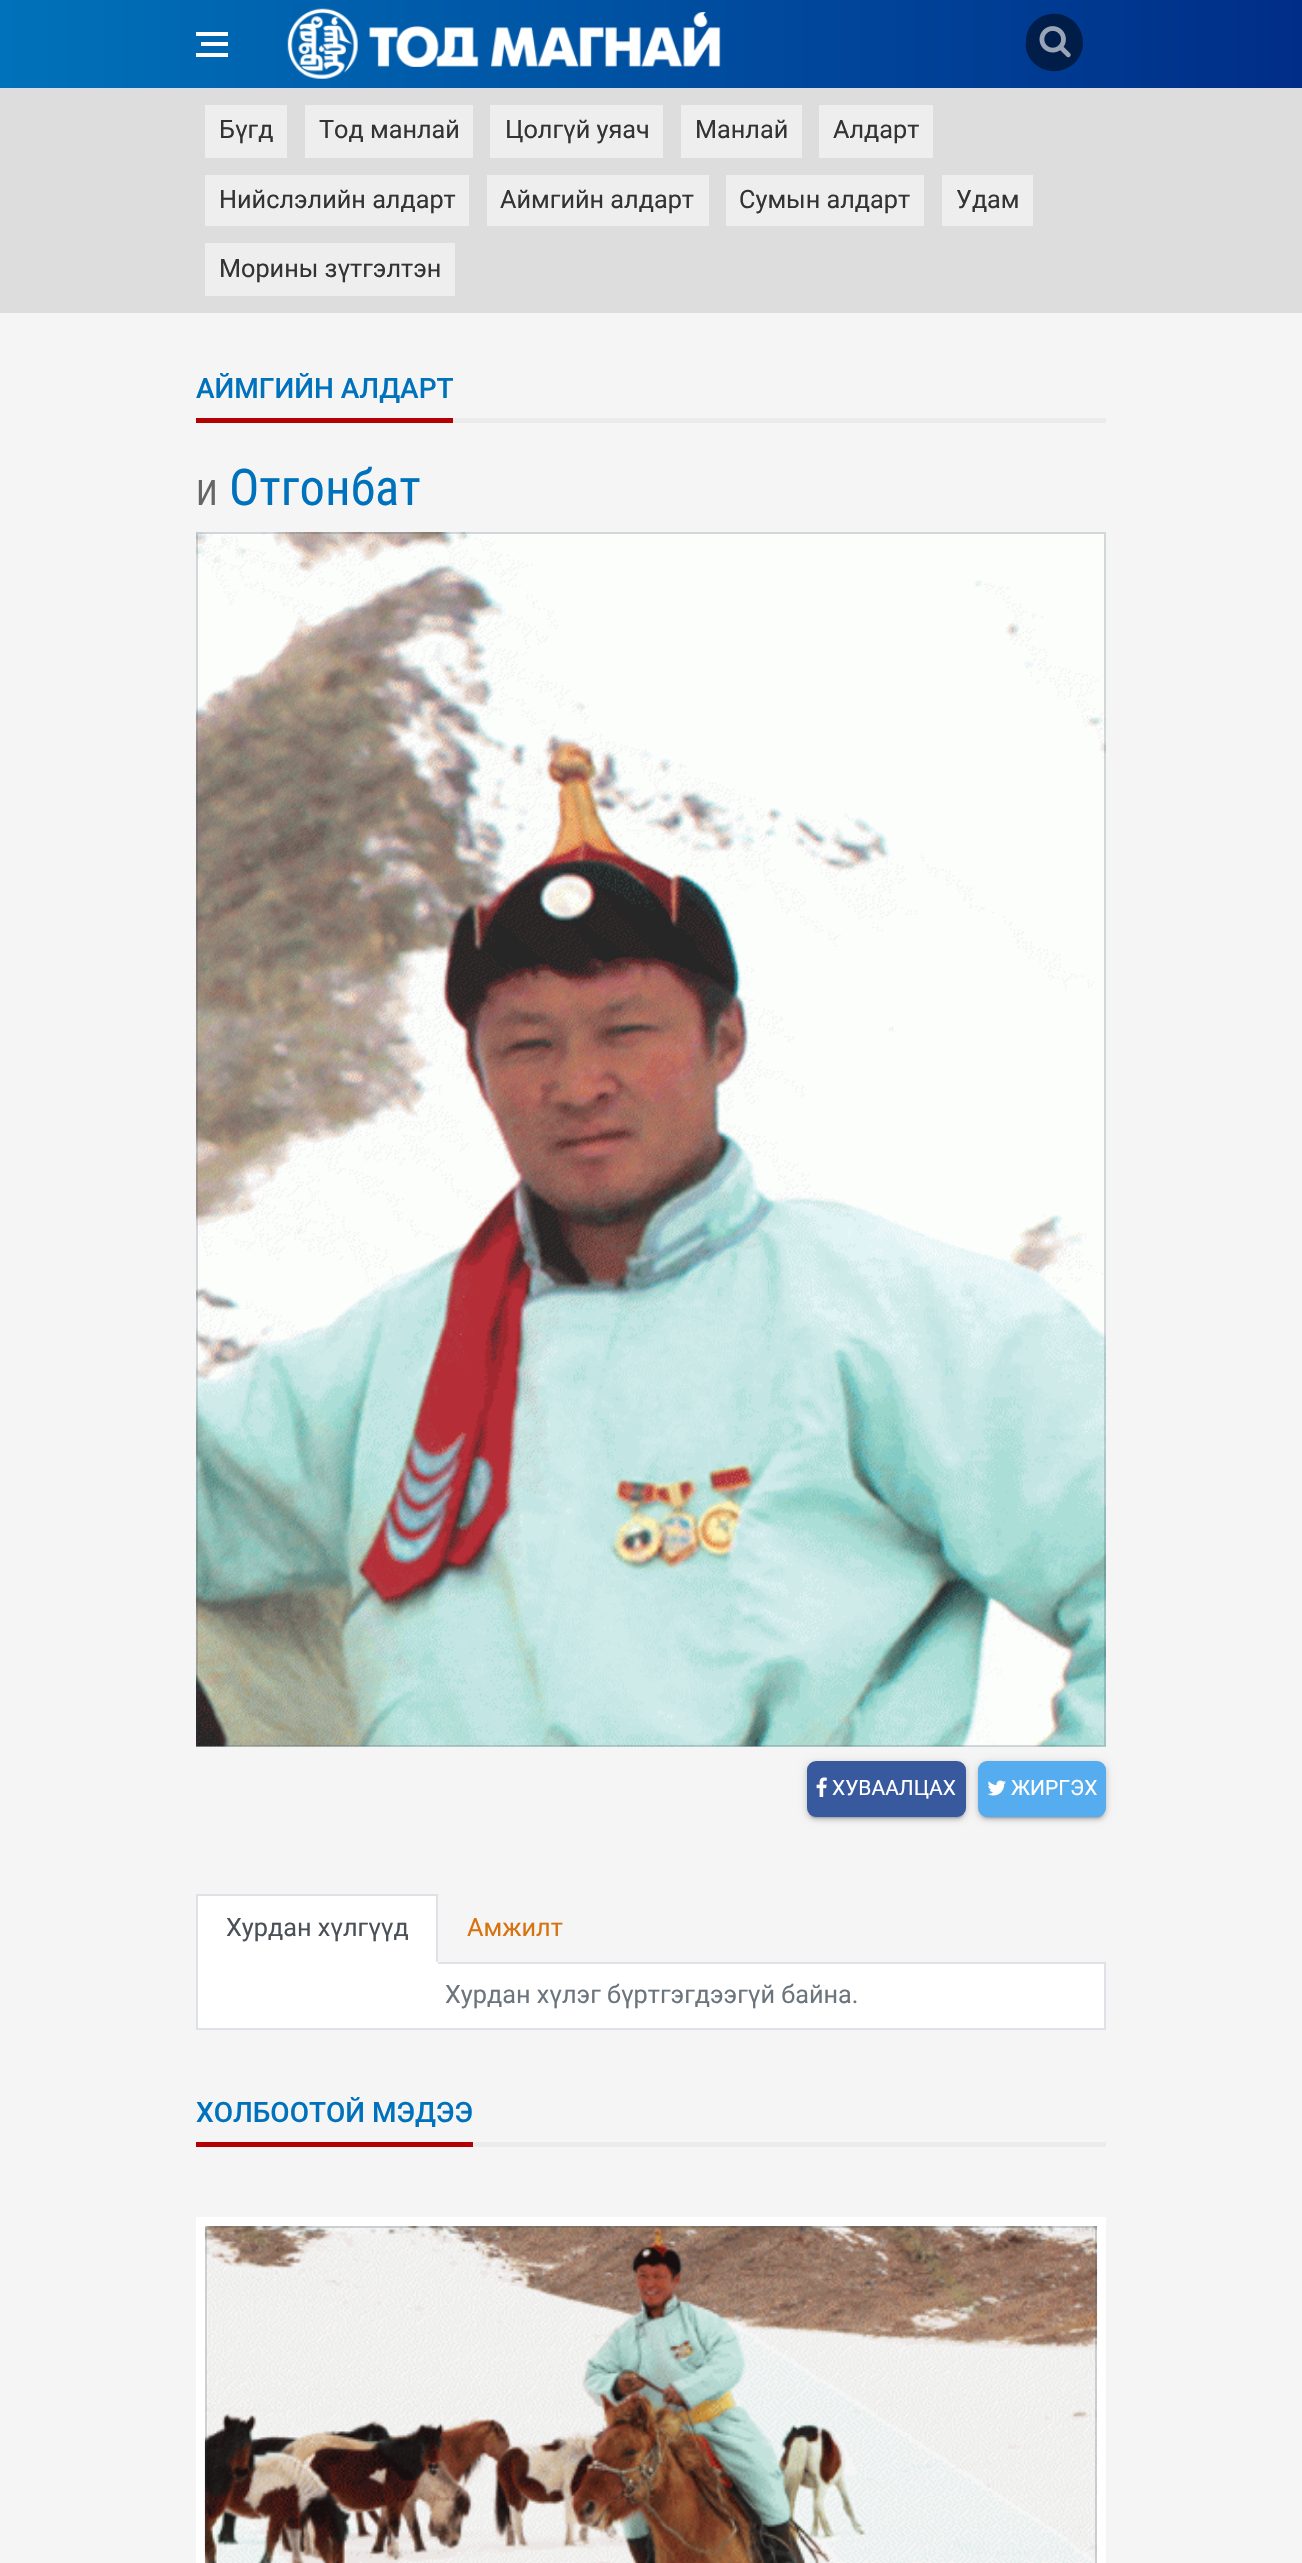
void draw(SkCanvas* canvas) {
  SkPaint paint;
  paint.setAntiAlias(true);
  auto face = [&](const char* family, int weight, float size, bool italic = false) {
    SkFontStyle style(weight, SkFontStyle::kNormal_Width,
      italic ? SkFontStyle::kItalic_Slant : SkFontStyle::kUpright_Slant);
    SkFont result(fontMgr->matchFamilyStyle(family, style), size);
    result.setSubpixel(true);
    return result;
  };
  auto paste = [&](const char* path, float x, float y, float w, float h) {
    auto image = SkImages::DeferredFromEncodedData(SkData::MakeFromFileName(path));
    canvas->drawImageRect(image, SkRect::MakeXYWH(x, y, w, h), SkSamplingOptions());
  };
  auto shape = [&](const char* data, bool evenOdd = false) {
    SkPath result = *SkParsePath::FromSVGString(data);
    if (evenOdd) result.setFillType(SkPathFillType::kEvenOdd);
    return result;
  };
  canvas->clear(0xfff5f5f5);
  {
    const SkColor colors[] = {0xff0072ba, 0xff002d88};
    const float stops[] = {0, 1};
    const SkPoint ends[] = {{0, 44}, {1302, 44}};
    paint.setShader(SkGradientShader::MakeLinear(ends, colors, stops, 2, SkTileMode::kClamp));
    paint.setAlpha(255);
  }
  canvas->drawRect(SkRect::MakeXYWH(0, 0, 1302, 88), paint);
  paint.setShader(nullptr);
  {
    const struct { float x, y, w, h; SkColor color; } items[] = {
      {201, 42, 27, 4, 0xffffffff},
      {196, 32, 32, 4, 0xffffffff},
      {196, 53, 32, 4, 0xffffffff},
    };
    for (auto [x, y, w, h, color] : items) {
      paint.setColor(color);
      canvas->drawRect(SkRect::MakeXYWH(x, y, w, h), paint);
    }
  }
  paste("img/1.png", 287, 8, 434, 71);
  paint.setColor(0x80000000);
  canvas->drawPath(shape("M1079 28C1082 33 1083 39 1083 44C1081 73 1044 81 1029 57C1026 52 1025 46 1026 41C1027 12 1065 4 1079 28Z"), paint);
  paste("img/2.png", 1039, 26, 32, 32);
  {
    const struct { float x, y, w, h; SkColor color; } items[] = {
      {0, 88, 1302, 225, 0xffdddddd},
      {205, 105, 82, 53, 0xffeeeeee},
      {305, 105, 168, 53, 0xffeeeeee},
      {490, 105, 173, 53, 0xffeeeeee},
      {681, 105, 121, 53, 0xffeeeeee},
      {819, 105, 114, 53, 0xffeeeeee},
      {205, 175, 264, 51, 0xffeeeeee},
      {487, 175, 222, 51, 0xffeeeeee},
      {726, 175, 198, 51, 0xffeeeeee},
      {942, 175, 91, 51, 0xffeeeeee},
      {205, 243, 250, 53, 0xffeeeeee},
      {196, 418, 257, 5, 0xffb30003},
      {453, 418, 653, 5, 0xffebebeb},
    };
    for (auto [x, y, w, h, color] : items) {
      paint.setColor(color);
      canvas->drawRect(SkRect::MakeXYWH(x, y, w, h), paint);
    }
  }
  paste("img/3.png", 196, 532, 910, 1215);
  paint.setStroke(true);
  paint.setStrokeWidth(2);
  paint.setColor(0x332c3e50);
  canvas->drawRect(SkRect::MakeXYWH(197, 533, 908, 1213), paint);
  paint.setStroke(false);
  paint.setColor(0x1f000000);
  paint.setMaskFilter(SkMaskFilter::MakeBlur(kNormal_SkBlurStyle, 4.5f));
  canvas->drawRoundRect(SkRect::MakeXYWH(807, 1762, 159, 56), 9, 9, paint);
  paint.setMaskFilter(nullptr);
  paint.setColor(0x33000000);
  paint.setMaskFilter(SkMaskFilter::MakeBlur(kNormal_SkBlurStyle, 1));
  canvas->drawRoundRect(SkRect::MakeXYWH(810, 1769, 153, 49), 5, 5, paint);
  paint.setMaskFilter(nullptr);
  paint.setColor(0x24000000);
  paint.setMaskFilter(SkMaskFilter::MakeBlur(kNormal_SkBlurStyle, 2));
  canvas->drawRoundRect(SkRect::MakeXYWH(807, 1764, 159, 56), 9, 9, paint);
  paint.setMaskFilter(nullptr);
  paint.setColor(0xff39599f);
  canvas->drawRoundRect(SkRect::MakeXYWH(807, 1761, 159, 56), 9, 9, paint);
  paste("img/4.png", 816, 1777, 11, 20);
  paint.setColor(0x1f000000);
  paint.setMaskFilter(SkMaskFilter::MakeBlur(kNormal_SkBlurStyle, 4.5f));
  canvas->drawRoundRect(SkRect::MakeXYWH(978, 1762, 128, 56), 9, 9, paint);
  paint.setMaskFilter(nullptr);
  paint.setColor(0x33000000);
  paint.setMaskFilter(SkMaskFilter::MakeBlur(kNormal_SkBlurStyle, 1));
  canvas->drawRoundRect(SkRect::MakeXYWH(982, 1769, 121, 49), 5, 5, paint);
  paint.setMaskFilter(nullptr);
  paint.setColor(0x24000000);
  paint.setMaskFilter(SkMaskFilter::MakeBlur(kNormal_SkBlurStyle, 2));
  canvas->drawRoundRect(SkRect::MakeXYWH(978, 1764, 128, 56), 9, 9, paint);
  paint.setMaskFilter(nullptr);
  paint.setColor(0xff55acee);
  canvas->drawRoundRect(SkRect::MakeXYWH(978, 1761, 128, 56), 9, 9, paint);
  paste("img/5.png", 987, 1780, 19, 16);
  {
    const struct { float x, y, w, h; SkColor color; } items[] = {
      {438, 1962, 668, 2, 0xffdee2e6},
      {198, 1896, 238, 66, 0xffffffff},
      {196, 1894, 242, 2, 0xffdee2e6},
      {436, 1894, 2, 70, 0xffdee2e6},
      {196, 1962, 242, 2, 0xffffffff},
      {196, 1894, 2, 70, 0xffdee2e6},
      {198, 1964, 906, 64, 0xffffffff},
      {1104, 1964, 2, 66, 0xffdee2e6},
      {196, 2028, 910, 2, 0xffdee2e6},
      {196, 1964, 2, 66, 0xffdee2e6},
      {196, 2142, 277, 5, 0xffb30003},
      {473, 2142, 633, 5, 0xffebebeb},
      {196, 2217, 910, 346, 0xffffffff},
    };
    for (auto [x, y, w, h, color] : items) {
      paint.setColor(color);
      canvas->drawRect(SkRect::MakeXYWH(x, y, w, h), paint);
    }
  }
  paste("img/6.png", 204, 2226, 894, 337);
  paint.setStroke(true);
  paint.setColor(0x332c3e50);
  canvas->drawRect(SkRect::MakeXYWH(206, 2227, 890, 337), paint);
  auto f0 = face("Roboto", 400, 25.25f);
  paint.setStroke(false);
  paint.setColor(0xff333333);
  {
    const struct { const char* s; float x, y; } items[] = {
      {"Бүгд", 219, 138},
      {"Тод манлай", 319, 138},
      {"Цолгүй уяач", 505, 138},
      {"Манлай", 695, 138},
      {"Алдарт", 833, 138},
      {"Нийслэлийн алдарт", 219, 208},
      {"Аймгийн алдарт", 500, 208},
      {"Сумын алдарт", 739, 208},
      {"Удам", 956, 208},
      {"Морины зүтгэлтэн", 219, 277},
    };
    for (auto [s, x, y] : items) {
      canvas->drawString(s, x, y, f0, paint);
    }
  }
  auto f1 = face("Roboto", 500, 28);
  paint.setColor(0xff0072bc);
  canvas->drawString("АЙМГИЙН АЛДАРТ", 196, 398, f1, paint);
  auto f2 = face("Roboto Condensed", 400, 35);
  paint.setColor(0xff666666);
  canvas->drawString("И", 196, 505, f2, paint);
  auto f3 = face("Roboto Condensed", 400, 50.5f);
  paint.setColor(0xff0072bc);
  canvas->drawString("Отгонбат", 229, 505, f3, paint);
  auto f4 = face("Roboto", 400, 21);
  paint.setColor(0xffffffff);
  canvas->drawString("ХУВААЛЦАХ", 832, 1795, f4, paint);
  canvas->drawString("ЖИРГЭХ", 1011, 1795, f4, paint);
  paint.setColor(0xff495057);
  canvas->drawString("Хурдан хүлгүүд", 226, 1936, f0, paint);
  paint.setColor(0xffd6730f);
  canvas->drawString("Амжилт", 467, 1936, f0, paint);
  paint.setColor(0xff6c757d);
  canvas->drawString("Хурдан хүлэг бүртгэгдээгүй байна.", 445, 2003, f0, paint);
  paint.setColor(0xff0072bc);
  canvas->drawString("ХОЛБООТОЙ МЭДЭЭ", 196, 2122, f1, paint);
}
